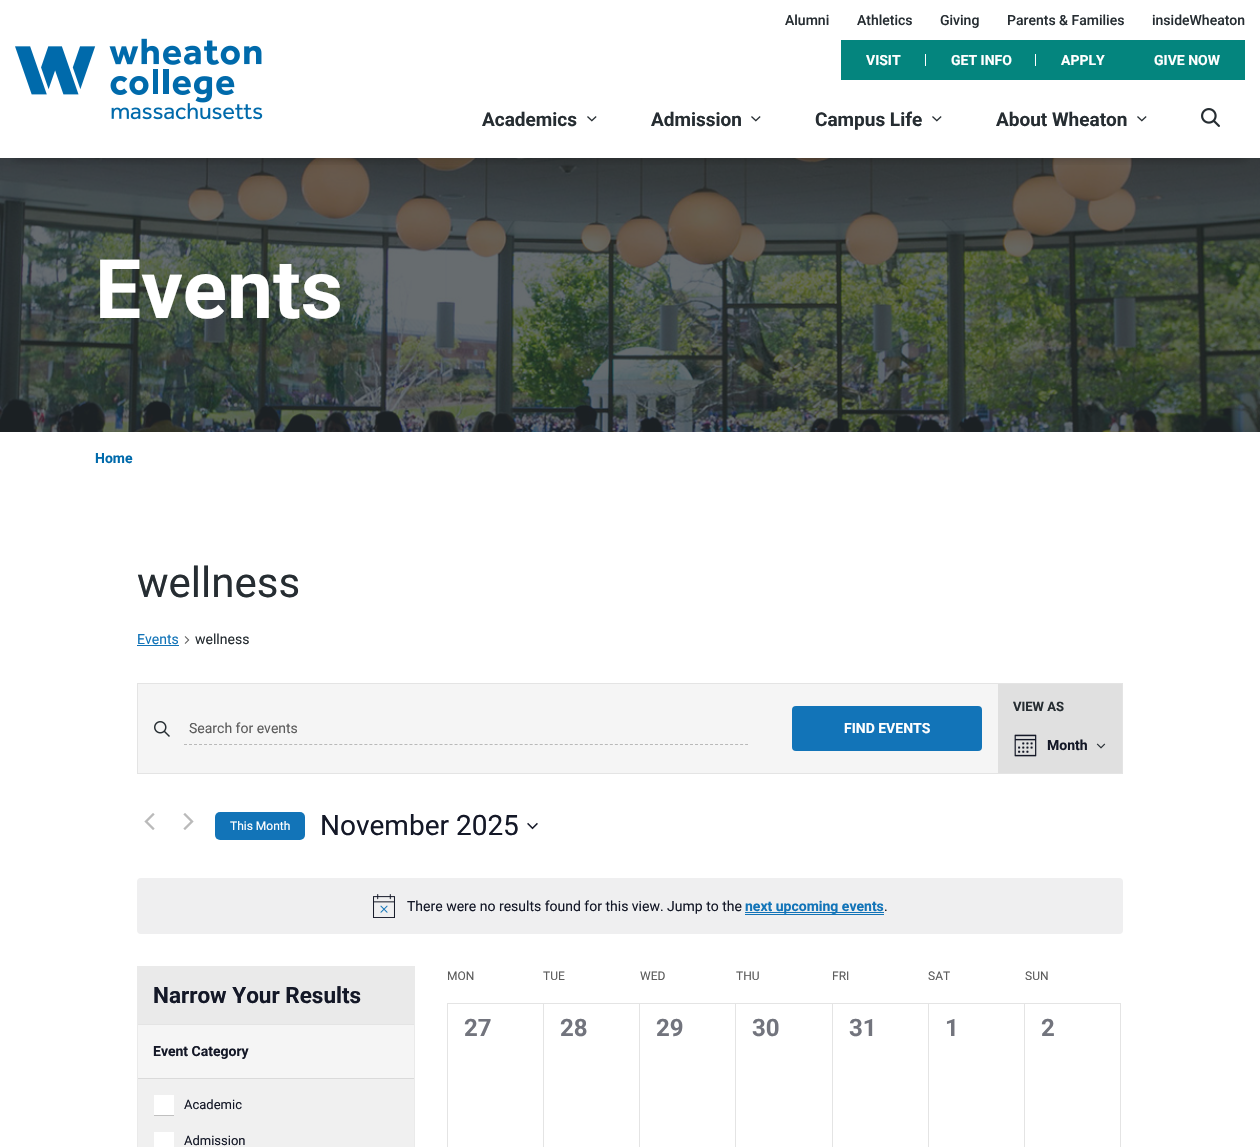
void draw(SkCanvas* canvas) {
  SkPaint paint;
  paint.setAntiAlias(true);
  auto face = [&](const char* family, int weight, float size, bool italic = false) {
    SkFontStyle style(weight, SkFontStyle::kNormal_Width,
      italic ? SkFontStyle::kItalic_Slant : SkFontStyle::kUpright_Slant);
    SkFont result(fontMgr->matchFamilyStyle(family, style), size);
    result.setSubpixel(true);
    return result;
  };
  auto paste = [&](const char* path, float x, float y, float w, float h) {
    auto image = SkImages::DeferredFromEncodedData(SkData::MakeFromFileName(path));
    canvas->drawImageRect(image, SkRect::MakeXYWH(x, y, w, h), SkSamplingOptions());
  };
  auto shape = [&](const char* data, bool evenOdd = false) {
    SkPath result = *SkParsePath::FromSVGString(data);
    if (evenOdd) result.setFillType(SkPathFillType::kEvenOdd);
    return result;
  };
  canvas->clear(0xffffffff);
  paste("img/4.png", 0, 158, 1260, 274);
  canvas->save();
  canvas->clipRect(SkRect::MakeXYWH(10, 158, 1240, 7));
  paint.setColor(0x4d000000);
  paint.setMaskFilter(SkMaskFilter::MakeBlur(kNormal_SkBlurStyle, 5));
  canvas->drawRect(SkRect::MakeXYWH(15, 30, 1230, 128), paint);
  paint.setMaskFilter(nullptr);
  canvas->restore();
  paste("img/1.png", 15, 38, 248, 82);
  {
    const struct { float x, y, w, h; SkColor color; } items[] = {
      {841, 40, 404, 40, 0xff04857e},
      {925, 54, 1, 12, 0xffffffff},
      {1035, 54, 1, 12, 0xffffffff},
    };
    for (auto [x, y, w, h, color] : items) {
      paint.setColor(color);
      canvas->drawRect(SkRect::MakeXYWH(x, y, w, h), paint);
    }
  }
  paste("img/2.png", 587, 116, 10, 6);
  paste("img/2.png", 751, 116, 10, 6);
  paste("img/2.png", 932, 116, 10, 6);
  paste("img/2.png", 1137, 116, 10, 6);
  paste("img/3.png", 1201, 108, 19, 19);
  paint.setColor(0xff1274b8);
  canvas->drawRect(SkRect::MakeXYWH(137, 645, 42, 1), paint);
  paste("img/5.png", 184, 636, 6, 8);
  paint.setStroke(true);
  paint.setStrokeWidth(1);
  paint.setColor(0xffe4e4e4);
  canvas->drawRect(SkRect::MakeXYWH(137.5f, 683.5f, 985, 90), paint);
  paint.setStroke(false);
  paint.setColor(0xfff5f5f5);
  canvas->drawRect(SkRect::MakeXYWH(138, 684, 860, 89), paint);
  paste("img/6.png", 154, 721, 16, 16);
  paint.setStroke(true);
  paint.setColor(0xffb9b9b9);
  paint.setPathEffect(SkDashPathEffect::Make({{3, 2.01f}}, 0));
  canvas->drawPath(shape("M184 744.5H748"), paint);
  paint.setPathEffect(nullptr);
  paint.setStroke(false);
  paint.setColor(0xff1274b8);
  canvas->drawRoundRect(SkRect::MakeXYWH(792, 706, 190, 45), 4, 4, paint);
  paint.setColor(0xffe0e0e0);
  canvas->drawRect(SkRect::MakeXYWH(998, 684, 124, 89), paint);
  paste("img/7.png", 1014, 734, 23, 23);
  paste("img/8.png", 1096, 743, 10, 6);
  paste("img/9.png", 144, 813, 11, 17);
  paste("img/10.png", 183, 813, 11, 17);
  paint.setColor(0xff1274b8);
  canvas->drawRoundRect(SkRect::MakeXYWH(215, 812, 90, 28), 5, 5, paint);
  paste("img/11.png", 527, 822, 11, 8);
  paint.setColor(0xffefeff0);
  canvas->drawRoundRect(SkRect::MakeXYWH(137, 878, 986, 56), 4, 4, paint);
  paste("img/12.png", 373, 894, 22, 24);
  {
    const struct { float x, y, w, h; SkColor color; } items[] = {
      {745, 914, 139, 1, 0xff1274b8},
      {745, 912, 139, 1, 0xff1274b8},
      {137, 966, 278, 181, 0xffeaeaea},
      {138, 1024, 276, 1, 0xffe4e4e4},
      {138, 1025, 276, 53, 0xfff5f5f5},
      {138, 1078, 276, 1, 0xffdadada},
      {138, 1079, 276, 68, 0xfff0f0f0},
      {154, 1115, 20, 1, 0xffc0c0c0},
      {154, 1095, 20, 20, 0xffffffff},
      {154, 1132, 20, 15, 0xffffffff},
      {447, 1003, 674, 1, 0xffe4e4e4},
      {447, 1003, 1, 144, 0xffe4e4e4},
      {543, 1003, 1, 144, 0xffe4e4e4},
      {639, 1003, 1, 144, 0xffe4e4e4},
      {735, 1003, 1, 144, 0xffe4e4e4},
      {832, 1003, 1, 144, 0xffe4e4e4},
      {928, 1003, 1, 144, 0xffe4e4e4},
      {1024, 1003, 1, 144, 0xffe4e4e4},
      {1120, 1003, 1, 144, 0xffe4e4e4},
    };
    for (auto [x, y, w, h, color] : items) {
      paint.setColor(color);
      canvas->drawRect(SkRect::MakeXYWH(x, y, w, h), paint);
    }
  }
  auto f0 = face("Roboto", 500, 14);
  paint.setColor(0xff262d32);
  {
    const struct { const char* s; float x, y; } items[] = {
      {"Alumni", 785, 25},
      {"Athletics", 857, 25},
      {"Giving", 940, 25},
      {"Parents & Families", 1007, 25},
      {"insideWheaton", 1152, 25},
    };
    for (auto [s, x, y] : items) {
      canvas->drawString(s, x, y, f0, paint);
    }
  }
  auto f1 = face("Roboto", 700, 14);
  paint.setColor(0xffffffff);
  {
    const struct { const char* s; float x, y; } items[] = {
      {"VISIT", 866, 65},
      {"GET INFO", 951, 65},
      {"APPLY", 1061, 65},
      {"GIVE NOW", 1154, 65},
    };
    for (auto [s, x, y] : items) {
      canvas->drawString(s, x, y, f1, paint);
    }
  }
  auto f2 = face("Roboto", 700, 19);
  paint.setColor(0xff262d32);
  {
    const struct { const char* s; float x, y; } items[] = {
      {"Academics", 482, 126},
      {"Admission", 651, 126},
      {"Campus Life", 815, 126},
      {"About Wheaton", 996, 126},
    };
    for (auto [s, x, y] : items) {
      canvas->drawString(s, x, y, f2, paint);
    }
  }
  auto f3 = face("Roboto", 700, 82);
  paint.setColor(0xffffffff);
  canvas->drawString("Events", 95, 318, f3, paint);
  paint.setColor(0xff006aab);
  canvas->drawString("Home", 95, 463, f1, paint);
  auto f4 = face("Roboto", 400, 42);
  paint.setColor(0xff262d32);
  canvas->drawString("wellness", 137, 597, f4, paint);
  auto f5 = face("Roboto", 400, 14);
  paint.setColor(0xff1274b8);
  canvas->drawString("Events", 137, 644, f5, paint);
  paint.setColor(0xff262d32);
  canvas->drawString("wellness", 195, 644, f5, paint);
  paint.setColor(0xff5d5d5d);
  canvas->drawString("Search for events", 189, 733, f5, paint);
  paint.setColor(0xffffffff);
  canvas->drawString("FIND EVENTS", 844, 733, f1, paint);
  auto f6 = face("Roboto", 700, 13);
  paint.setColor(0xff262d32);
  canvas->drawString("VIEW AS", 1013, 711, f6, paint);
  paint.setColor(0xff141827);
  canvas->drawString("Month", 1047, 750, f1, paint);
  auto f7 = face("Roboto", 400, 12);
  paint.setColor(0xffffffff);
  canvas->drawString("This Month", 230, 830, f7, paint);
  auto f8 = face("Roboto", 400, 28);
  paint.setColor(0xff141827);
  canvas->drawString("November 2025", 320, 835, f8, paint);
  canvas->drawString("There were no results found for this view. Jump to the", 407, 911, f5, paint);
  paint.setColor(0xff1274b8);
  canvas->drawString("next upcoming events", 745, 911, f1, paint);
  paint.setColor(0xff141827);
  canvas->drawString(".", 884, 911, f5, paint);
  auto f9 = face("Roboto", 700, 22.5f);
  canvas->drawString("Narrow Your Results", 153, 1003, f9, paint);
  canvas->drawString("Event Category", 153, 1056, f1, paint);
  auto f10 = face("Roboto", 400, 13);
  canvas->drawString("Academic", 184, 1109, f10, paint);
  canvas->drawString("Admission", 184, 1145, f10, paint);
  paint.setColor(0xff5d5d5d);
  {
    const struct { const char* s; float x, y; } items[] = {
      {"MON", 447, 980},
      {"TUE", 543, 980},
      {"WED", 640, 980},
      {"THU", 736, 980},
      {"FRI", 832, 980},
      {"SAT", 928, 980},
      {"SUN", 1025, 980},
    };
    for (auto [s, x, y] : items) {
      canvas->drawString(s, x, y, f7, paint);
    }
  }
  auto f11 = face("Roboto", 700, 24);
  paint.setColor(0xff72747d);
  {
    const struct { const char* s; float x, y; } items[] = {
      {"27", 464, 1036},
      {"28", 560, 1036},
      {"29", 656, 1036},
      {"30", 752, 1036},
      {"31", 849, 1036},
      {"1", 945, 1036},
      {"2", 1041, 1036},
    };
    for (auto [s, x, y] : items) {
      canvas->drawString(s, x, y, f11, paint);
    }
  }
}
